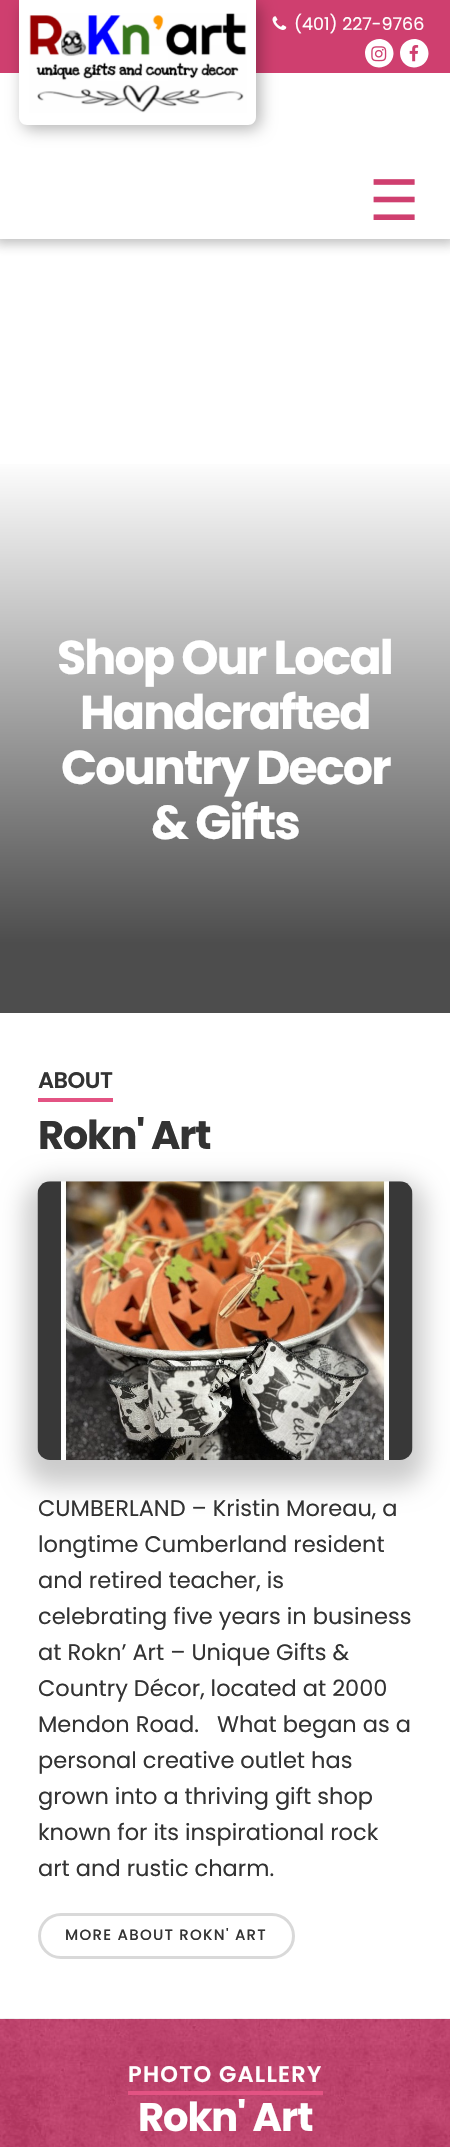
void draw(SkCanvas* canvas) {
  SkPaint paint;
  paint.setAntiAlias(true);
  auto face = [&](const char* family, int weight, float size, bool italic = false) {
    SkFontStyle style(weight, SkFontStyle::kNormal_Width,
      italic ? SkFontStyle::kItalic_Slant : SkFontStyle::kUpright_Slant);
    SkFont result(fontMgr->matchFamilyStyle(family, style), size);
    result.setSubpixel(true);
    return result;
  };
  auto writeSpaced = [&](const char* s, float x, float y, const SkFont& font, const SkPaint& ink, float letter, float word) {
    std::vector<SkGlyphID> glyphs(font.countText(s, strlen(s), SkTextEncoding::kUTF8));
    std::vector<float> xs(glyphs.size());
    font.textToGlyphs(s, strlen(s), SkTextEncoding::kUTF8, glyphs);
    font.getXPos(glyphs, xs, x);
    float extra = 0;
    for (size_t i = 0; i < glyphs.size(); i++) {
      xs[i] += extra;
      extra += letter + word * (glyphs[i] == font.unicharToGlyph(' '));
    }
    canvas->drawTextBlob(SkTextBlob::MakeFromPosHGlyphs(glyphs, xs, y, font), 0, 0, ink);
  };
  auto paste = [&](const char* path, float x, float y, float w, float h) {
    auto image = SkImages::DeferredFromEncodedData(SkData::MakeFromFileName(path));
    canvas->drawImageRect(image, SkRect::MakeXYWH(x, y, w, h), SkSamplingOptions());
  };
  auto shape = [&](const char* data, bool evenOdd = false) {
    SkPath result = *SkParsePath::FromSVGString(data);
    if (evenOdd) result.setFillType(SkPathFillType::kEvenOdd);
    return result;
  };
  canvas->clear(0xffffffff);
  paint.setColor(0x4d323232);
  paint.setMaskFilter(SkMaskFilter::MakeBlur(kNormal_SkBlurStyle, 5.5f));
  canvas->drawRect(SkRect::MakeXYWH(-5, -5, 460, 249), paint);
  paint.setMaskFilter(nullptr);
  paint.setColor(0xffffffff);
  canvas->drawRect(SkRect::MakeXYWH(0, 73, 450, 166), paint);
  paint.setColor(0xffcf3f6f);
  canvas->drawRect(SkRect::MakeXYWH(0, 0, 450, 73), paint);
  paste("img/1.png", 272, 16, 15, 14);
  paint.setColor(0xffffffff);
  canvas->drawPath(shape("M391.5 46C393 48.5 393.5 51.5 393.5 54C392.5 68 374 72.5 367 60.5C365.5 58 365 55 365 52C366 38 384.5 34 391.5 46Z"), paint);
  paste("img/2.png", 371, 46, 16, 16);
  canvas->drawPath(shape("M426.5 46C428 48.5 428.5 51.5 428.5 54C427.5 68 409 72.5 402 60.5C400.5 58 400 55 400 52C401 38 419.5 34 426.5 46Z"), paint);
  paste("img/3.png", 409, 45, 10, 17);
  paint.setColor(0x4d000000);
  paint.setMaskFilter(SkMaskFilter::MakeBlur(kNormal_SkBlurStyle, 8));
  canvas->drawRoundRect(SkRect::MakeXYWH(23, 4, 237, 125), 8, 8, paint);
  paint.setMaskFilter(nullptr);
  paint.setColor(0xffffffff);
  canvas->drawPath(shape("M19 0H256V117C256 121.5 252.5 125 248 125H27C22.5 125 19 121.5 19 117Z"), paint);
  paste("img/4.png", 29, 13, 218, 100);
  {
    const SkColor colors[] = {0xffffffff, 0xff4d4d4d};
    const float stops[] = {0.2f, 0.9f};
    const SkPoint ends[] = {{225, 318}, {225, 1013}};
    paint.setShader(SkGradientShader::MakeLinear(ends, colors, stops, 2, SkTileMode::kClamp));
    paint.setAlpha(255);
  }
  canvas->drawRect(SkRect::MakeXYWH(0, 464, 450, 549), paint);
  paint.setShader(nullptr);
  paint.setColor(0xffe35383);
  canvas->drawRect(SkRect::MakeXYWH(38, 1098, 75, 4), paint);
  paint.setColor(0x33000000);
  paint.setMaskFilter(SkMaskFilter::MakeBlur(kNormal_SkBlurStyle, 12.5f));
  canvas->drawRoundRect(SkRect::MakeXYWH(25, 1181, 400, 304), 25, 25, paint);
  paint.setMaskFilter(nullptr);
  paste("img/5.png", 37, 1181, 376, 279);
  paint.setStroke(true);
  paint.setStrokeWidth(3);
  paint.setColor(0xffd9d9d9);
  canvas->drawRoundRect(SkRect::MakeXYWH(39.5f, 1914.5f, 254, 43), 21.5f, 21.5f, paint);
  paste("img/6.png", 0, 2018, 450, 1);
  paint.setStroke(false);
  paint.setColor(0xffcf3f6f);
  canvas->drawRect(SkRect::MakeXYWH(0, 2019, 450, 128), paint);
  paste("img/7.png", 0, 2018, 450, 129);
  paint.setColor(0xffe35383);
  canvas->drawRect(SkRect::MakeXYWH(128, 2091, 195, 4), paint);
  auto f0 = face("Poppins", 400, 17.5f);
  paint.setColor(0xffffffff);
  canvas->drawString("(401) 227-9766", 294, 30, f0, paint);
  auto f1 = face("DejaVu Sans", 400, 56);
  paint.setColor(0xffcf3f6f);
  writeSpaced("☰", 369, 220, f1, paint, -1, 0);
  auto f2 = face("Poppins", 700, 47.5f);
  paint.setColor(0xffffffff);
  {
    const struct { const char* s; float x, y; } items[] = {
      {"Shop Our Local", 57, 674},
      {"Handcrafted", 80, 729},
      {"Country Decor", 61, 784},
      {"& Gifts", 151, 839},
    };
    for (auto [s, x, y] : items) {
      writeSpaced(s, x, y, f2, paint, -1.9f, 0);
    }
  }
  auto f3 = face("Poppins", 600, 22.5f);
  paint.setColor(0xff333333);
  writeSpaced("ABOUT", 38, 1088, f3, paint, -0.5f, 0);
  auto f4 = face("Poppins", 700, 40);
  writeSpaced("Rokn' Art", 38, 1149, f4, paint, -1.25f, 0);
  auto f5 = face("Poppins", 400, 22.5f);
  {
    const struct { const char* s; float x, y; } items[] = {
      {"CUMBERLAND – Kristin Moreau, a", 38, 1516},
      {"longtime Cumberland resident", 38, 1552},
      {"and retired teacher, is", 38, 1588},
      {"celebrating five years in business", 38, 1624},
      {"at Rokn’ Art – Unique Gifts &", 38, 1660},
      {"Country Décor, located at 2000", 38, 1696},
      {"Mendon Road.   What began as a", 38, 1732},
      {"personal creative outlet has", 38, 1768},
      {"grown into a thriving gift shop", 38, 1804},
      {"known for its inspirational rock", 38, 1840},
      {"art and rustic charm.", 38, 1876},
    };
    for (auto [s, x, y] : items) {
      canvas->drawString(s, x, y, f5, paint);
    }
  }
  auto f6 = face("Poppins", 500, 15);
  writeSpaced("MORE ABOUT ROKN' ART", 65, 1940, f6, paint, 1.25f, 0);
  paint.setColor(0xffffffff);
  writeSpaced("PHOTO GALLERY", 128, 2082, f3, paint, 1.25f, 0);
  writeSpaced("Rokn' Art", 138, 2131, f4, paint, -1, 0);
}
